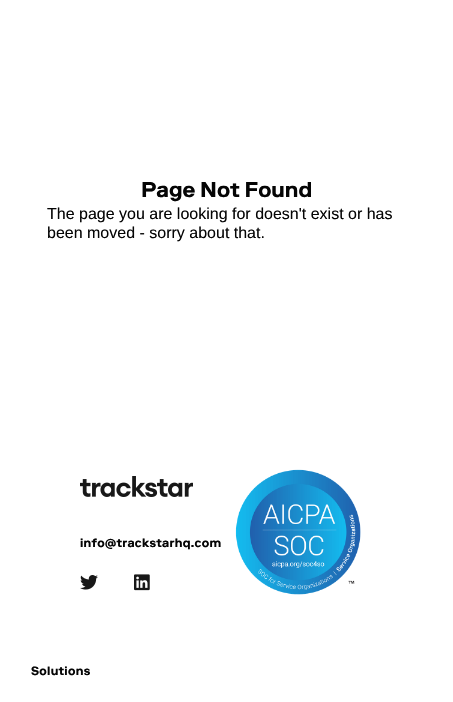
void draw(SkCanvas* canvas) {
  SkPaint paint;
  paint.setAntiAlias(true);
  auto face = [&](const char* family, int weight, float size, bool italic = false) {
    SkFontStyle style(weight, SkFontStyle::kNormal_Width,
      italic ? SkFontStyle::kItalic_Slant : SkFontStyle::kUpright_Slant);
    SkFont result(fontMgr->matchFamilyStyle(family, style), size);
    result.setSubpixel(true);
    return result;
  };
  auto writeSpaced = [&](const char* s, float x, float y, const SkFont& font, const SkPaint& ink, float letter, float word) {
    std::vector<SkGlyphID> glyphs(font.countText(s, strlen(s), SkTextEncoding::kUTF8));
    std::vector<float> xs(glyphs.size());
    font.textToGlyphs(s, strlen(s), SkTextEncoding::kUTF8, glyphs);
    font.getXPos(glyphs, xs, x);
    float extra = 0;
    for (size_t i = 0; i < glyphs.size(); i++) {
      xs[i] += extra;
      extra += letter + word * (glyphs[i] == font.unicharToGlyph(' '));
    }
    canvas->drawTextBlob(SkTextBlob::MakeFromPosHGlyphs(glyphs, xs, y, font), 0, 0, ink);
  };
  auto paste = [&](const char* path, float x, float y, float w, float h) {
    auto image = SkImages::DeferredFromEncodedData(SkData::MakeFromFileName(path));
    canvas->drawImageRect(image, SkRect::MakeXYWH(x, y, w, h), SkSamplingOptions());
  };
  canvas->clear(0xffffffff);
  paste("img/1.png", 80, 476, 113, 21);
  paste("img/2.png", 80, 575, 18, 15);
  paste("img/3.png", 134, 574, 16, 17);
  paste("img/4.png", 235, 469, 126, 126);
  auto f0 = face("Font", 700, 21.25f);
  paint.setColor(0xff050505);
  canvas->drawString("Page Not Found", 141, 197, f0, paint);
  auto f1 = face("Liberation Sans", 400, 16);
  canvas->drawString("The page you are looking for doesn't exist or has", 47, 219, f1, paint);
  canvas->drawString("been moved - sorry about that.", 47, 238, f1, paint);
  auto f2 = face("Font", 700, 12);
  writeSpaced("info@trackstarhq.com", 80, 547, f2, paint, 0.3f, 0);
  writeSpaced("Solutions", 31, 675, f2, paint, 0.3f, 0);
}
